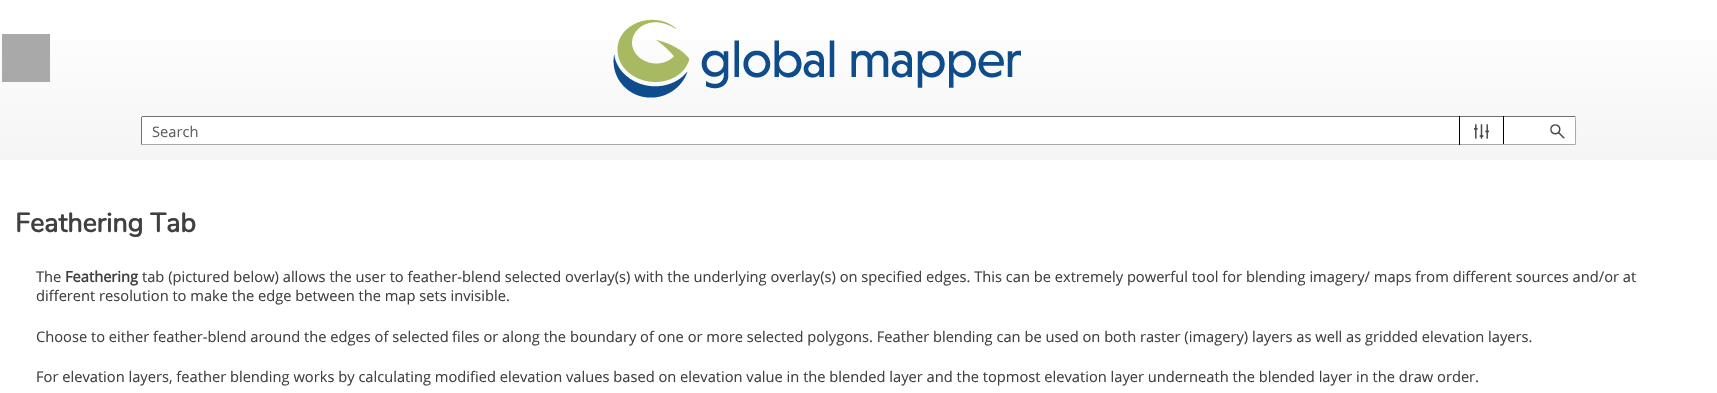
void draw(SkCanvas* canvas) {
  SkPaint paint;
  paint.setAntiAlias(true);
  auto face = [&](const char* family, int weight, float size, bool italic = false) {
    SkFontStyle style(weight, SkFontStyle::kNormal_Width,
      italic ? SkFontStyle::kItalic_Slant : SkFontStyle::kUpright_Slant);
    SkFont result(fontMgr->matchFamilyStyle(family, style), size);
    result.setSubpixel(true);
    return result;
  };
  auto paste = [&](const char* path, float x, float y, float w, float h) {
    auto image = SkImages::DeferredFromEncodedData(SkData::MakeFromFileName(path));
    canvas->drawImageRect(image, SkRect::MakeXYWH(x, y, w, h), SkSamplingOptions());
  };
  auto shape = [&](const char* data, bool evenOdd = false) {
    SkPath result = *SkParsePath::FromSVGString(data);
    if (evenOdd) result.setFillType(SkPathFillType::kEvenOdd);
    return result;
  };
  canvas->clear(0xffffffff);
  {
    const SkColor colors[] = {0xffffffff, 0xfff5f5f5};
    const float stops[] = {0, 1};
    const SkPoint ends[] = {{859, 0}, {859, 160}};
    paint.setShader(SkGradientShader::MakeLinear(ends, colors, stops, 2, SkTileMode::kClamp));
    paint.setAlpha(255);
  }
  canvas->drawRect(SkRect::MakeXYWH(0, 40, 1717, 120), paint);
  paint.setShader(nullptr);
  paint.setColor(0xffa9a9a9);
  canvas->drawRect(SkRect::MakeXYWH(2, 34, 48, 48), paint);
  paste("img/1.png", 613, 19, 408, 79);
  paint.setColor(0xffffffff);
  canvas->drawPath(shape("M142 116H1575C1575.5 116 1576 116.5 1576 117V145H141V117C141 116.5 141.5 116 142 116Z"), paint);
  paint.setColor(0xff717171);
  canvas->drawPath(shape("M142 116V117H1575L1576 116H1575Z"), paint);
  paint.setColor(0xffa9a9a9);
  canvas->drawPath(shape("M1576 145L1575 144H142L141 145Z"), paint);
  paint.setColor(0xff717171);
  canvas->drawPath(shape("M142 117L141.5 116.5L141 117V145L142 144Z"), paint);
  paste("img/2.png", 1474, 124, 15, 15);
  {
    const struct { float x, y, w, h; SkColor color; } items[] = {
      {1503, 116, 1, 29, 0xff000000},
      {1503, 144, 1, 1, 0xffa9a9a9},
      {1459, 116, 1, 29, 0xff000000},
    };
    for (auto [x, y, w, h, color] : items) {
      paint.setColor(color);
      canvas->drawRect(SkRect::MakeXYWH(x, y, w, h), paint);
    }
  }
  paint.setColor(0xffffffff);
  canvas->drawPath(shape("M1540 116H1575C1575.5 116 1576 116.5 1576 117V145H1540Z"), paint);
  paste("img/3.png", 1550, 124, 15, 15);
  paint.setColor(0xff717171);
  canvas->drawPath(shape("M1540 116V117H1575L1575.5 116.5L1575 116Z"), paint);
  paint.setColor(0xffa9a9a9);
  canvas->drawPath(shape("M1575 144V117L1575.5 116.5C1576.5 117 1576 142 1576 145Z"), paint);
  canvas->drawPath(shape("M1576 145L1575 144H1540V145Z"), paint);
  auto f0 = face("Open Sans", 400, 14.67f);
  paint.setColor(0xff5f5f5f);
  canvas->drawString("Search", 152, 137, f0, paint);
  auto f1 = face("Nunito", 700, 26.75f);
  paint.setColor(0xff404040);
  canvas->drawString("Feathering Tab", 15, 232, f1, paint);
  canvas->drawString("The", 36, 282, f0, paint);
  auto f2 = face("Open Sans", 700, 14.67f);
  canvas->drawString("Feathering", 65, 282, f2, paint);
  {
    const struct { const char* s; float x, y; } items[] = {
      {"tab (pictured below) allows the user to feather-blend selected overlay(s) with the underlying overlay(s) on specified edges. This can be extremely powerful tool for blending imagery/ maps from different sources and/or at", 142, 282},
      {"different resolution to make the edge between the map sets invisible.", 36, 301},
      {"Choose to either feather-blend around the edges of selected", 36, 342},
      {"files or along the boundary of one or more selected polygons. Feather blending can be used on both raster (imagery) layers as well as gridded elevation layers.", 452, 342},
      {"For elevation layers, feather blending works by calculating modified elevation values based on elevation value in the blended layer and the topmost elevation layer underneath the blended layer in the draw order.", 36, 382},
    };
    for (auto [s, x, y] : items) {
      canvas->drawString(s, x, y, f0, paint);
    }
  }
}
